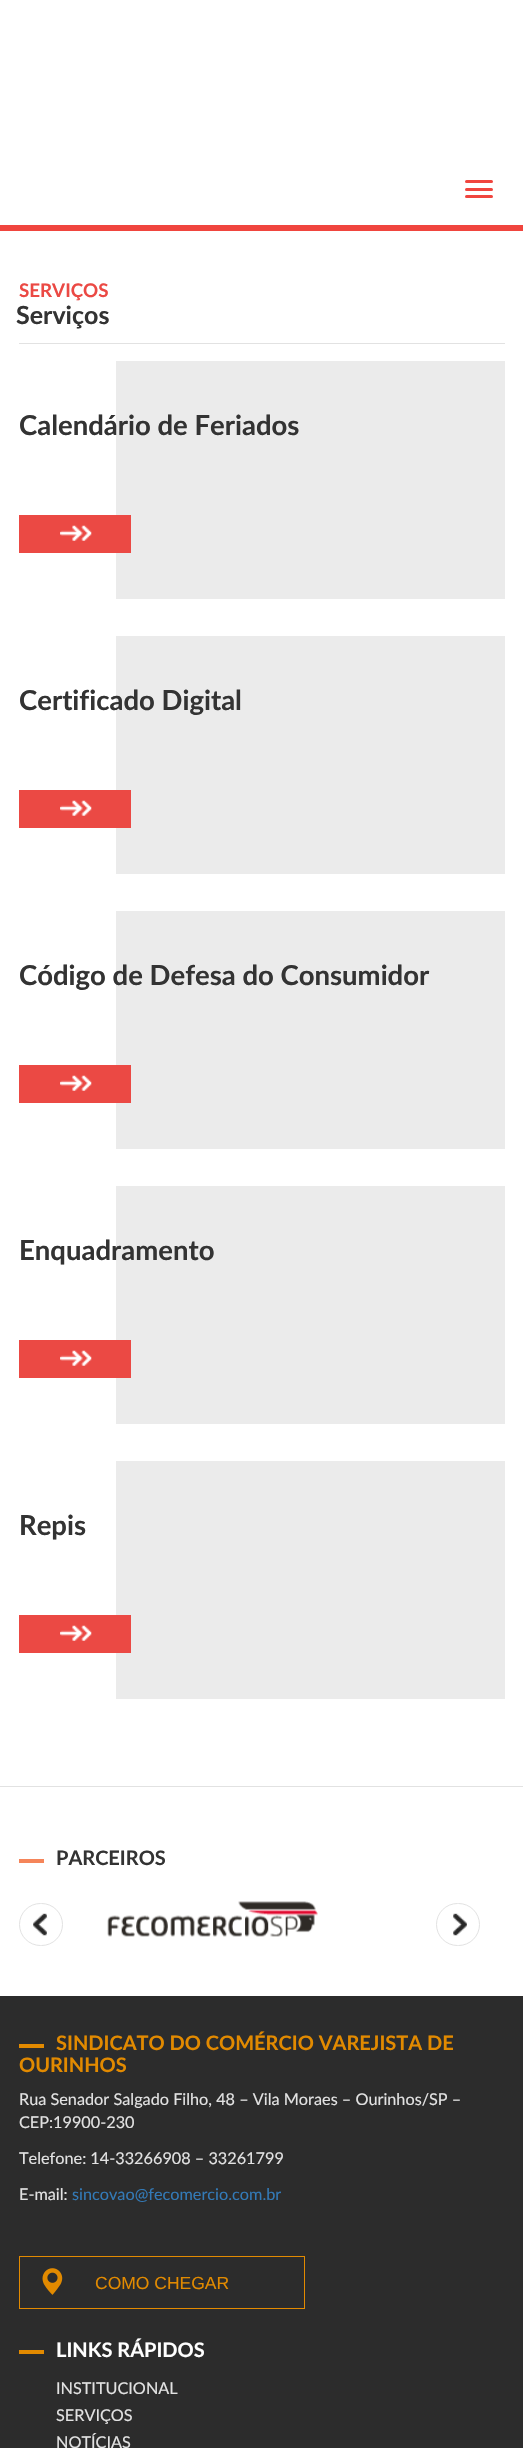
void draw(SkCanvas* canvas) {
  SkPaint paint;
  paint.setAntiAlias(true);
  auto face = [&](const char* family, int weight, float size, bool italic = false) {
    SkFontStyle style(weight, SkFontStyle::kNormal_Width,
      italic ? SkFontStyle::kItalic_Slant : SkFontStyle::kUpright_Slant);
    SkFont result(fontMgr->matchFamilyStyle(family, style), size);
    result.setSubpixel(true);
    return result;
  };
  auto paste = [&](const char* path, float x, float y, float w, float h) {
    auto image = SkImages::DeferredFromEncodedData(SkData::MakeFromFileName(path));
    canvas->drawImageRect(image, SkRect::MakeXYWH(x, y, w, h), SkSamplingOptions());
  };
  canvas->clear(0xffffffff);
  paint.setColor(0xfff0453e);
  canvas->drawRoundRect(SkRect::MakeXYWH(465, 180, 28, 3), 1.5f, 1.5f, paint);
  canvas->drawRoundRect(SkRect::MakeXYWH(465, 188, 28, 3), 1.5f, 1.5f, paint);
  canvas->drawRoundRect(SkRect::MakeXYWH(465, 195, 28, 3), 1.5f, 1.5f, paint);
  {
    const struct { float x, y, w, h; SkColor color; } items[] = {
      {0, 225, 523, 6, 0xfff0453e},
      {19, 343, 486, 1, 0xffe2e2e2},
      {116, 361, 389, 238, 0xffebebeb},
      {19, 515, 112, 38, 0xffeb4944},
    };
    for (auto [x, y, w, h, color] : items) {
      paint.setColor(color);
      canvas->drawRect(SkRect::MakeXYWH(x, y, w, h), paint);
    }
  }
  paste("img/1.png", 60, 525, 32, 16);
  paint.setColor(0xffebebeb);
  canvas->drawRect(SkRect::MakeXYWH(116, 636, 389, 238), paint);
  paint.setColor(0xffeb4944);
  canvas->drawRect(SkRect::MakeXYWH(19, 790, 112, 38), paint);
  paste("img/1.png", 60, 800, 32, 16);
  paint.setColor(0xffebebeb);
  canvas->drawRect(SkRect::MakeXYWH(116, 911, 389, 238), paint);
  paint.setColor(0xffeb4944);
  canvas->drawRect(SkRect::MakeXYWH(19, 1065, 112, 38), paint);
  paste("img/1.png", 60, 1075, 32, 16);
  paint.setColor(0xffebebeb);
  canvas->drawRect(SkRect::MakeXYWH(116, 1186, 389, 238), paint);
  paint.setColor(0xffeb4944);
  canvas->drawRect(SkRect::MakeXYWH(19, 1340, 112, 38), paint);
  paste("img/1.png", 60, 1350, 32, 16);
  paint.setColor(0xffebebeb);
  canvas->drawRect(SkRect::MakeXYWH(116, 1461, 389, 238), paint);
  paint.setColor(0xffeb4944);
  canvas->drawRect(SkRect::MakeXYWH(19, 1615, 112, 38), paint);
  paste("img/1.png", 60, 1625, 32, 16);
  paint.setColor(0xffe2e2e2);
  canvas->drawRect(SkRect::MakeXYWH(0, 1786, 523, 1), paint);
  paint.setColor(0xfff5855a);
  canvas->drawRect(SkRect::MakeXYWH(19, 1859, 25, 4), paint);
  paste("img/2.png", 33, 1913, 15, 23);
  paint.setStroke(true);
  paint.setStrokeWidth(1);
  paint.setColor(0xffe2e2e2);
  canvas->drawRoundRect(SkRect::MakeXYWH(19.5f, 1903.5f, 43, 42), 21, 21, paint);
  paste("img/3.png", 107, 1901, 211, 36);
  paste("img/4.png", 453, 1913, 14, 23);
  canvas->drawRoundRect(SkRect::MakeXYWH(436.5f, 1903.5f, 43, 42), 21, 21, paint);
  paint.setStroke(false);
  paint.setColor(0xff2c2c2c);
  canvas->drawRect(SkRect::MakeXYWH(0, 1996, 523, 452), paint);
  paint.setColor(0xffe28a00);
  canvas->drawRect(SkRect::MakeXYWH(19, 2044, 25, 4), paint);
  paint.setStroke(true);
  canvas->drawRect(SkRect::MakeXYWH(19.5f, 2256.5f, 285, 52), paint);
  paste("img/5.png", 42, 2268, 21, 27);
  paint.setStroke(false);
  canvas->drawRect(SkRect::MakeXYWH(19, 2350, 25, 4), paint);
  auto f0 = face("Lato", 700, 18.75f);
  paint.setColor(0xffeb4944);
  canvas->drawString("SERVIÇOS", 19, 297, f0, paint);
  auto f1 = face("Lato", 700, 25);
  paint.setColor(0xff333333);
  canvas->drawString("Serviços", 16, 324, f1, paint);
  auto f2 = face("Lato", 700, 27.5f);
  {
    const struct { const char* s; float x, y; } items[] = {
      {"Calendário de Feriados", 19, 435},
      {"Certificado Digital", 19, 710},
      {"Código de Defesa do Consumidor", 19, 985},
      {"Enquadramento", 19, 1260},
      {"Repis", 19, 1535},
    };
    for (auto [s, x, y] : items) {
      canvas->drawString(s, x, y, f2, paint);
    }
  }
  auto f3 = face("Lato", 700, 20);
  canvas->drawString("PARCEIROS", 56, 1865, f3, paint);
  paint.setColor(0xffe28a00);
  canvas->drawString("SINDICATO DO COMÉRCIO VAREJISTA DE", 56, 2050, f3, paint);
  canvas->drawString("OURINHOS", 19, 2072, f3, paint);
  auto f4 = face("Lato", 400, 16.25f);
  paint.setColor(0xffe2e2e2);
  {
    const struct { const char* s; float x, y; } items[] = {
      {"Rua Senador Salgado Filho, 48 – Vila Moraes – Ourinhos/SP –", 19, 2105},
      {"CEP:19900-230", 19, 2128},
      {"Telefone: 14-33266908 – 33261799", 19, 2164},
      {"E-mail:", 19, 2200},
    };
    for (auto [s, x, y] : items) {
      canvas->drawString(s, x, y, f4, paint);
    }
  }
  paint.setColor(0xff337ab7);
  canvas->drawString("sincovao@fecomercio.com.br", 72, 2200, f4, paint);
  auto f5 = face("Liberation Sans", 400, 17.5f);
  paint.setColor(0xffe28a00);
  canvas->drawString("COMO CHEGAR", 95, 2289, f5, paint);
  paint.setColor(0xffffffff);
  canvas->drawString("LINKS RÁPIDOS", 56, 2357, f3, paint);
  paint.setColor(0xffe2e2e2);
  {
    const struct { const char* s; float x, y; } items[] = {
      {"INSTITUCIONAL", 56, 2394},
      {"SERVIÇOS", 56, 2421},
      {"NOTÍCIAS", 56, 2448},
    };
    for (auto [s, x, y] : items) {
      canvas->drawString(s, x, y, f4, paint);
    }
  }
}
